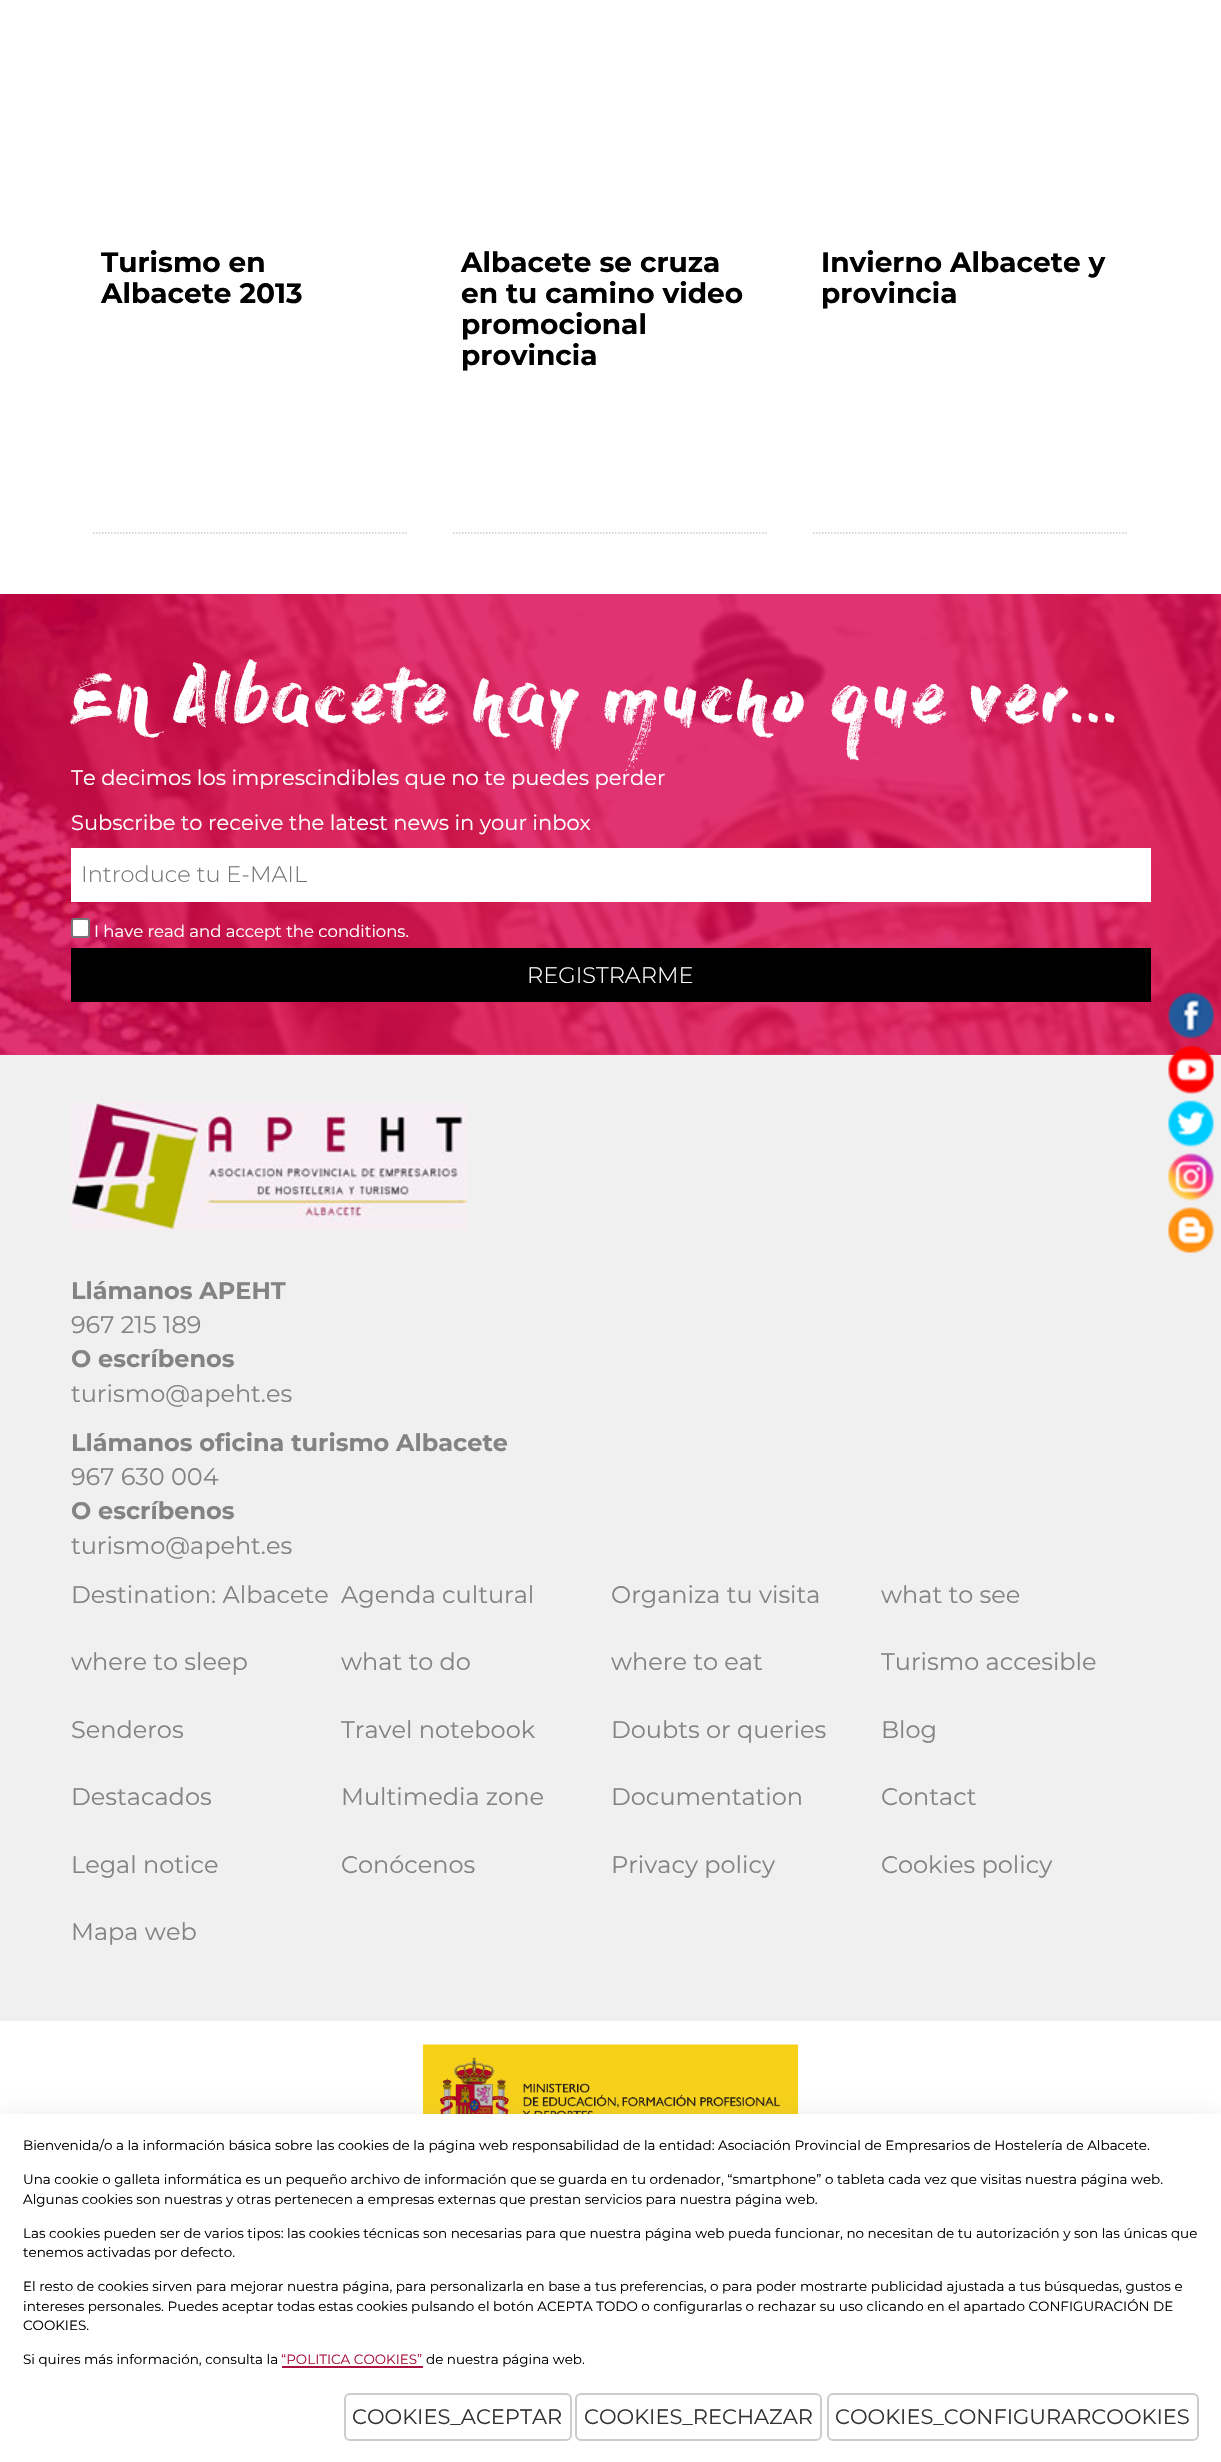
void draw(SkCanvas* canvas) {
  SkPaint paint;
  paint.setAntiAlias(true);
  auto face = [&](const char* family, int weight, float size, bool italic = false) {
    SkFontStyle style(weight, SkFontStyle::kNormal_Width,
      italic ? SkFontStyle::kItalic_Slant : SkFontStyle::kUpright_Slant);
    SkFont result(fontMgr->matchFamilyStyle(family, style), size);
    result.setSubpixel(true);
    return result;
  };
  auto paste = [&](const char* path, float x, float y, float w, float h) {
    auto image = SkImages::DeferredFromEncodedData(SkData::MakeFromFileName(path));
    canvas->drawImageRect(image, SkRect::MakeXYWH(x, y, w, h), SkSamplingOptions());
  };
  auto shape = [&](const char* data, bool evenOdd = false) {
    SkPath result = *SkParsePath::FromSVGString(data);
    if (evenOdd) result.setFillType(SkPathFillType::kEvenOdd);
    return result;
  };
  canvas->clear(0xffffffff);
  paint.setColor(0xffe13371);
  canvas->drawRect(SkRect::MakeXYWH(0, 1054, 1221, 1), paint);
  paint.setStroke(true);
  paint.setStrokeWidth(1.5f);
  paint.setColor(0xffcccccc);
  paint.setPathEffect(SkDashPathEffect::Make({{1.5f, 1.5f}}, 0));
  canvas->drawPath(shape("M93 533H408"), paint);
  paint.setPathEffect(nullptr);
  paint.setPathEffect(SkDashPathEffect::Make({{1.5f, 1.5f}}, 0));
  canvas->drawPath(shape("M453 533H768"), paint);
  paint.setPathEffect(nullptr);
  paint.setPathEffect(SkDashPathEffect::Make({{1.5f, 1.5f}}, 0));
  canvas->drawPath(shape("M813 533H1128"), paint);
  paint.setPathEffect(nullptr);
  paste("img/1.png", 0, 594, 1221, 461);
  paint.setStroke(false);
  paint.setColor(0xffffffff);
  canvas->drawRect(SkRect::MakeXYWH(71, 848, 1080, 54), paint);
  canvas->drawRoundRect(SkRect::MakeXYWH(72, 919, 17, 18), 2, 2, paint);
  paint.setStroke(true);
  paint.setStrokeWidth(2);
  paint.setColor(0xff767676);
  canvas->drawRoundRect(SkRect::MakeXYWH(72, 919, 17, 18), 2, 2, paint);
  paint.setStroke(false);
  paint.setColor(0xff000000);
  canvas->drawRect(SkRect::MakeXYWH(71, 948, 1080, 54), paint);
  paint.setColor(0xfff1f0f0);
  canvas->drawRect(SkRect::MakeXYWH(0, 1055, 1221, 966), paint);
  paste("img/2.png", 70, 1102, 397, 128);
  paste("img/3.png", 423, 2044, 375, 70);
  paste("img/4.png", 1168, 992, 46, 47);
  paste("img/5.png", 1168, 1045, 46, 49);
  paste("img/6.png", 1168, 1100, 46, 47);
  paste("img/7.png", 1168, 1153, 46, 48);
  paste("img/8.png", 1168, 1207, 46, 46);
  paint.setColor(0x26828486);
  paint.setMaskFilter(SkMaskFilter::MakeBlur(kNormal_SkBlurStyle, 11));
  canvas->drawRect(SkRect::MakeXYWH(0, 2114, 1221, 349), paint);
  paint.setMaskFilter(nullptr);
  paint.setColor(0xffffffff);
  canvas->drawRect(SkRect::MakeXYWH(0, 2114, 1221, 348), paint);
  paint.setColor(0xffa9123f);
  canvas->drawRect(SkRect::MakeXYWH(282, 2366, 141, 2), paint);
  paint.setStroke(true);
  paint.setColor(0xffcccccc);
  canvas->drawRoundRect(SkRect::MakeXYWH(345, 2394, 226, 46), 5, 5, paint);
  canvas->drawRoundRect(SkRect::MakeXYWH(576, 2394, 245, 46), 5, 5, paint);
  canvas->drawRoundRect(SkRect::MakeXYWH(828, 2394, 370, 46), 5, 5, paint);
  canvas->save();
  canvas->clipRect(SkRect::MakeXYWH(101, 249, 300, 62));
  auto f0 = face("Montserrat", 700, 28);
  paint.setStroke(false);
  paint.setColor(0xff000000);
  canvas->drawString("Turismo en", 101, 272, f0, paint);
  canvas->restore();
  {
    const struct { const char* s; float x, y; } items[] = {
      {"Albacete 2013", 101, 303},
      {"Albacete se cruza", 461, 272},
      {"en tu camino video", 461, 303},
      {"promocional", 461, 334},
      {"provincia", 461, 365},
      {"Invierno Albacete y", 821, 272},
      {"provincia", 821, 303},
    };
    for (auto [s, x, y] : items) {
      canvas->drawString(s, x, y, f0, paint);
    }
  }
  auto f1 = face("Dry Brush", 400, 72);
  paint.setColor(0xffffffff);
  canvas->drawString("En Albacete hay mucho que ver...", 71, 722, f1, paint);
  auto f2 = face("Montserrat", 400, 21);
  canvas->drawString("Te decimos los imprescindibles que no te puedes perder", 71, 785, f2, paint);
  canvas->drawString("Subscribe to receive the latest news in your inbox", 71, 830, f2, paint);
  auto f3 = face("Montserrat", 300, 22.5f);
  paint.setColor(0xff757575);
  canvas->drawString("Introduce tu E-MAIL", 81, 882, f3, paint);
  auto f4 = face("Montserrat", 400, 16.5f);
  paint.setColor(0xffffffff);
  canvas->drawString("I have read and accept the conditions.", 94, 937, f4, paint);
  canvas->drawString("REGISTRARME", 527, 983, f3, paint);
  auto f5 = face("Montserrat", 700, 24);
  paint.setColor(0xff838383);
  canvas->drawString("Llámanos APEHT", 71, 1299, f5, paint);
  auto f6 = face("Montserrat", 400, 24);
  canvas->drawString("967 215 189", 71, 1333, f6, paint);
  canvas->drawString("O escríbenos", 71, 1367, f5, paint);
  canvas->drawString("turismo@apeht.es", 71, 1402, f6, paint);
  canvas->drawString("Llámanos oficina turismo Albacete", 71, 1451, f5, paint);
  canvas->drawString("967 630 004", 71, 1485, f6, paint);
  canvas->drawString("O escríbenos", 71, 1519, f5, paint);
  {
    const struct { const char* s; float x, y; } items[] = {
      {"turismo@apeht.es", 71, 1554},
      {"Destination: Albacete", 71, 1603},
      {"Agenda cultural", 341, 1603},
      {"Organiza tu visita", 611, 1603},
      {"what to see", 881, 1603},
      {"where to sleep", 71, 1670},
      {"what to do", 341, 1670},
      {"where to eat", 611, 1670},
      {"Turismo accesible", 881, 1670},
      {"Senderos", 71, 1738},
      {"Travel notebook", 341, 1738},
      {"Doubts or queries", 611, 1738},
      {"Blog", 881, 1738},
      {"Destacados", 71, 1805},
      {"Multimedia zone", 341, 1805},
      {"Documentation", 611, 1805},
      {"Contact", 881, 1805},
      {"Legal notice", 71, 1873},
      {"Conócenos", 341, 1873},
      {"Privacy policy", 611, 1873},
      {"Cookies policy", 881, 1873},
      {"Mapa web", 71, 1940},
    };
    for (auto [s, x, y] : items) {
      canvas->drawString(s, x, y, f6, paint);
    }
  }
  auto f7 = face("Montserrat", 400, 13.5f);
  paint.setColor(0xff000000);
  {
    const struct { const char* s; float x, y; } items[] = {
      {"Bienvenida/o a la información básica sobre las cookies de la página web responsabilidad de la entidad: Asociación Provincial de Empresarios de Hostelería de Albacete.", 23, 2150},
      {"Una cookie o galleta informática es un pequeño archivo de información que se guarda en tu ordenador, “smartphone” o tableta cada vez que visitas nuestra página web.", 23, 2184},
      {"Algunas cookies son nuestras y otras pertenecen a empresas externas que prestan servicios para nuestra página web.", 23, 2204},
      {"Las cookies pueden ser de varios tipos: las cookies técnicas son necesarias para que nuestra página web pueda funcionar, no necesitan de tu autorización y son las únicas que", 23, 2238},
      {"tenemos activadas por defecto.", 23, 2257},
      {"El resto de cookies sirven para mejorar nuestra página, para personalizarla en base a tus preferencias, o para poder mostrarte publicidad ajustada a tus búsquedas, gustos e", 23, 2291},
      {"intereses personales. Puedes aceptar todas estas cookies pulsando el botón ACEPTA TODO o configurarlas o rechazar su uso clicando en el apartado CONFIGURACIÓN DE", 23, 2311},
      {"COOKIES.", 23, 2330},
      {"Si quires más información, consulta la", 23, 2364},
    };
    for (auto [s, x, y] : items) {
      canvas->drawString(s, x, y, f7, paint);
    }
  }
  paint.setColor(0xffa9123f);
  canvas->drawString("“POLITICA COOKIES”", 281, 2364, f7, paint);
  paint.setColor(0xff000000);
  canvas->drawString("de nuestra página web.", 426, 2364, f7, paint);
  paint.setColor(0xff333333);
  {
    const struct { const char* s; float x, y; } items[] = {
      {"COOKIES_ACEPTAR", 352, 2424},
      {"COOKIES_RECHAZAR", 584, 2424},
      {"COOKIES_CONFIGURARCOOKIES", 835, 2424},
    };
    for (auto [s, x, y] : items) {
      canvas->drawString(s, x, y, f2, paint);
    }
  }
}
